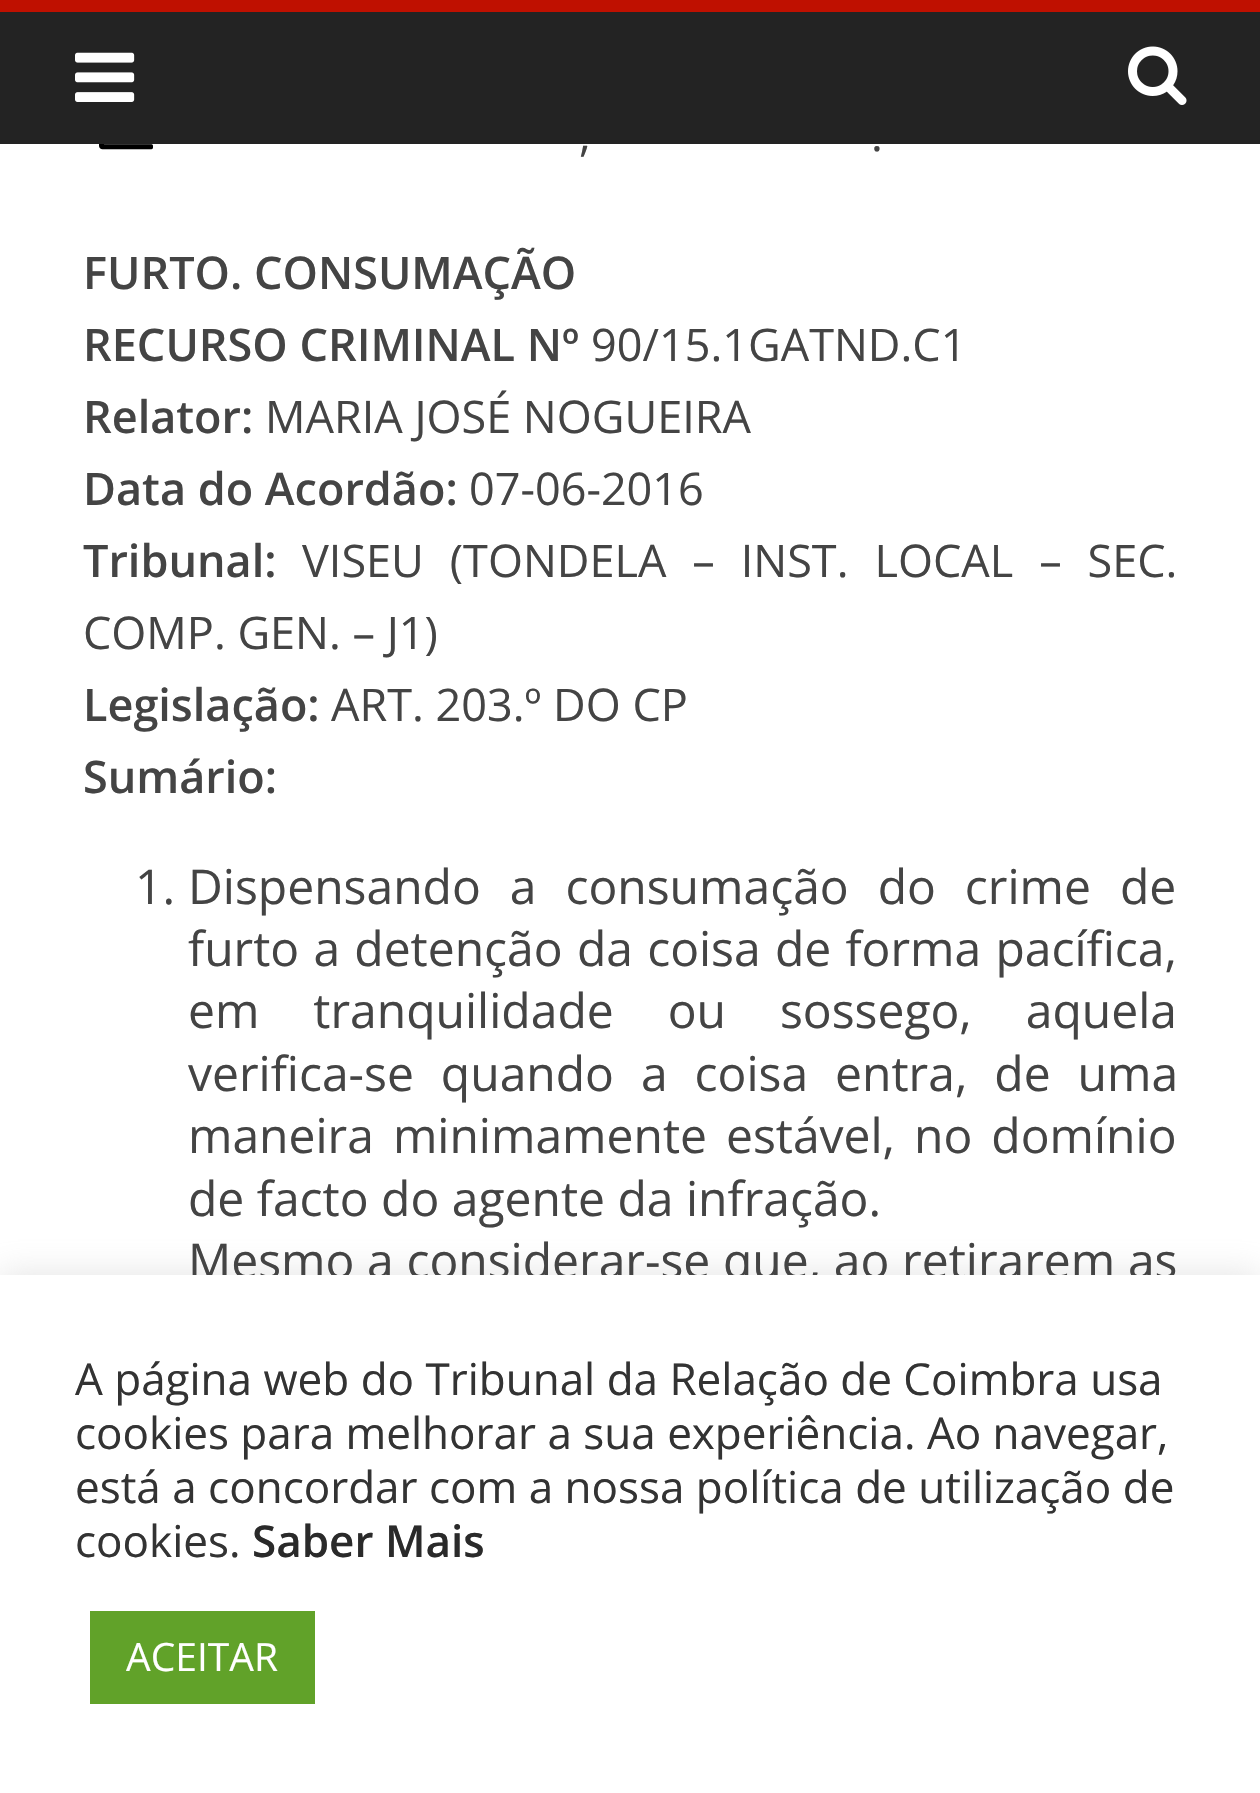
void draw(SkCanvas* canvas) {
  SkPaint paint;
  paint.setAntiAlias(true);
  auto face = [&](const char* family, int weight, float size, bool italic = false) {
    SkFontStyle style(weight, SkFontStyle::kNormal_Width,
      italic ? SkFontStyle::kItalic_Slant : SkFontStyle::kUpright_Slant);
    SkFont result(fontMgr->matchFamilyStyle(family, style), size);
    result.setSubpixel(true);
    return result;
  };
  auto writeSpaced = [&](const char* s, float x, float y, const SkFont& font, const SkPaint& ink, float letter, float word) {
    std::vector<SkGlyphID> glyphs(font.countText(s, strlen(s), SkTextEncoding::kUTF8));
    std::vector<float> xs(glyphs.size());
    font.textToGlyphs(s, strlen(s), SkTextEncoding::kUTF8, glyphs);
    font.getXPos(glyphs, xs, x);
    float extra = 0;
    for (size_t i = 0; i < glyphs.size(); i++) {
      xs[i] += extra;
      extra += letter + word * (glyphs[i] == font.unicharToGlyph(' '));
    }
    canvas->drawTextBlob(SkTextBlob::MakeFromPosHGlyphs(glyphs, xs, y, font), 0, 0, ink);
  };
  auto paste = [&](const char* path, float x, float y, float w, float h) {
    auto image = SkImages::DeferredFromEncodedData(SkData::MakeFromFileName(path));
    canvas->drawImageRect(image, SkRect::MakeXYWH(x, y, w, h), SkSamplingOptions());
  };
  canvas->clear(0xffffffff);
  paint.setColor(0xff232323);
  canvas->drawRect(SkRect::MakeXYWH(0, 12, 1260, 132), paint);
  paint.setColor(0xffbf1000);
  canvas->drawRect(SkRect::MakeXYWH(0, 0, 1260, 12), paint);
  paste("img/1.png", 75, 52, 60, 50);
  paste("img/2.png", 1128, 46, 59, 59);
  paste("img/3.png", 99, 144, 54, 6);
  paint.setColor(0x4dacabab);
  paint.setMaskFilter(SkMaskFilter::MakeBlur(kNormal_SkBlurStyle, 15));
  canvas->drawRect(SkRect::MakeXYWH(0, 1272, 1260, 519), paint);
  paint.setMaskFilter(nullptr);
  auto f0 = face("Open Sans", 400, 45);
  paint.setColor(0xff444444);
  canvas->drawString(",", 579, 151, f0, paint);
  canvas->drawString(".", 871, 151, f0, paint);
  auto f1 = face("Open Sans", 600, 45);
  canvas->drawString("FURTO. CONSUMAÇÃO", 83, 289, f1, paint);
  canvas->drawString("RECURSO CRIMINAL Nº", 83, 361, f1, paint);
  canvas->drawString("90/15.1GATND.C1", 591, 361, f0, paint);
  canvas->drawString("Relator:", 83, 433, f1, paint);
  canvas->drawString("MARIA JOSÉ NOGUEIRA", 265, 433, f0, paint);
  canvas->drawString("Data do Acordão:", 83, 505, f1, paint);
  canvas->drawString("07-06-2016", 469, 505, f0, paint);
  canvas->drawString("Tribunal:", 83, 577, f1, paint);
  writeSpaced("VISEU (TONDELA – INST. LOCAL – SEC.", 302, 577, f0, paint, 0, 14.25f);
  canvas->drawString("COMP. GEN. – J1)", 83, 649, f0, paint);
  canvas->drawString("Legislação:", 83, 721, f1, paint);
  canvas->drawString("ART. 203.º DO CP", 331, 721, f0, paint);
  canvas->drawString("Sumário:", 83, 793, f1, paint);
  auto f2 = face("Open Sans", 400, 48);
  canvas->drawString("1.", 135, 904, f2, paint);
  writeSpaced("Dispensando a consumação do crime de", 188, 904, f2, paint, 0, 16.5f);
  writeSpaced("furto a detenção da coisa de forma pacífica,", 188, 966, f2, paint, 0, 1.75f);
  writeSpaced("em tranquilidade ou sossego, aquela", 188, 1028, f2, paint, 0, 41.5f);
  writeSpaced("verifica-se quando a coisa entra, de uma", 188, 1091, f2, paint, 0, 14.5f);
  writeSpaced("maneira minimamente estável, no domínio", 188, 1153, f2, paint, 0, 6.5f);
  canvas->drawString("de facto do agente da infração.", 188, 1216, f2, paint);
  writeSpaced("Mesmo a considerar-se que, ao retirarem as", 188, 1278, f2, paint, 0, 0.25f);
  paint.setColor(0xffffffff);
  canvas->drawRect(SkRect::MakeXYWH(0, 1275, 1260, 518), paint);
  auto f3 = face("Open Sans", 400, 44);
  paint.setColor(0xff333333);
  {
    const struct { const char* s; float x, y; } items[] = {
      {"A página web do Tribunal da Relação de Coimbra usa", 75, 1395},
      {"cookies para melhorar a sua experiência. Ao navegar,", 75, 1449},
      {"está a concordar com a nossa política de utilização de", 75, 1503},
      {"cookies.", 75, 1557},
    };
    for (auto [s, x, y] : items) {
      canvas->drawString(s, x, y, f3, paint);
    }
  }
  auto f4 = face("Open Sans", 600, 44);
  paint.setColor(0xff2a2a2a);
  canvas->drawString("Saber Mais", 252, 1557, f4, paint);
  paint.setColor(0xff61a229);
  canvas->drawRect(SkRect::MakeXYWH(90, 1611, 225, 93), paint);
  auto f5 = face("Open Sans", 400, 39);
  paint.setColor(0xffffffff);
  canvas->drawString("ACEITAR", 126, 1671, f5, paint);
}
